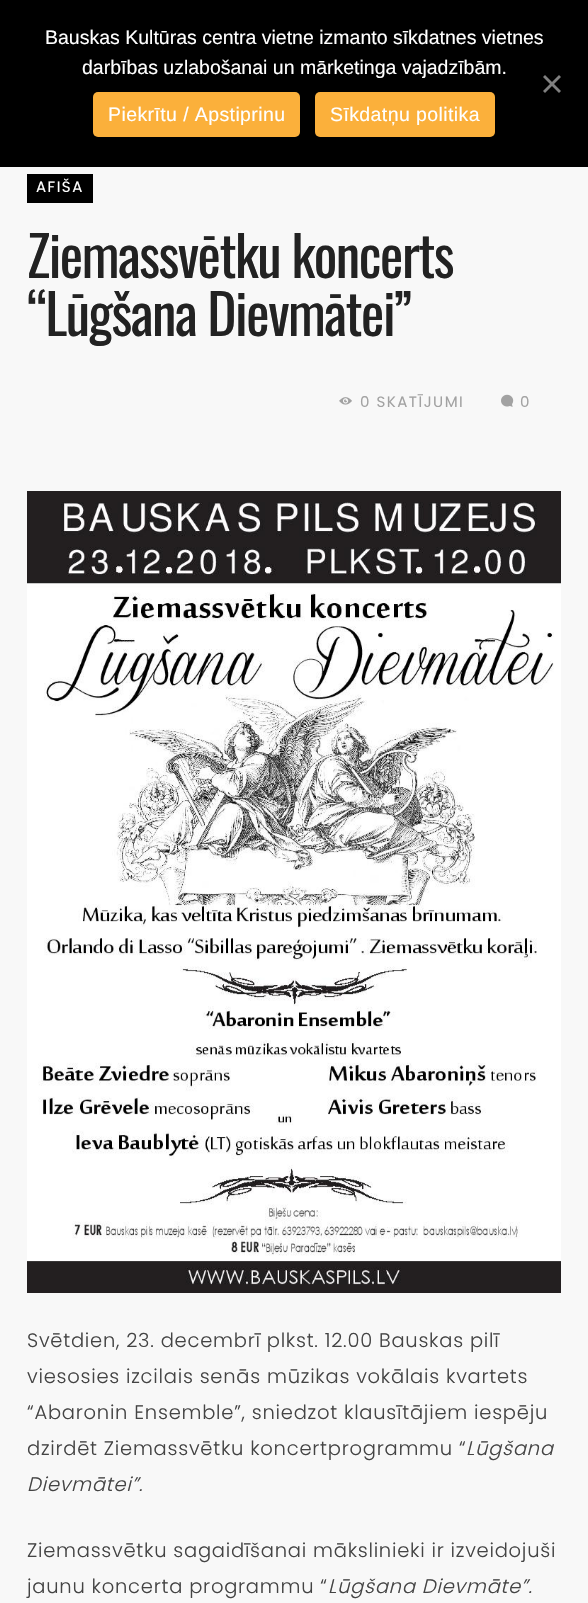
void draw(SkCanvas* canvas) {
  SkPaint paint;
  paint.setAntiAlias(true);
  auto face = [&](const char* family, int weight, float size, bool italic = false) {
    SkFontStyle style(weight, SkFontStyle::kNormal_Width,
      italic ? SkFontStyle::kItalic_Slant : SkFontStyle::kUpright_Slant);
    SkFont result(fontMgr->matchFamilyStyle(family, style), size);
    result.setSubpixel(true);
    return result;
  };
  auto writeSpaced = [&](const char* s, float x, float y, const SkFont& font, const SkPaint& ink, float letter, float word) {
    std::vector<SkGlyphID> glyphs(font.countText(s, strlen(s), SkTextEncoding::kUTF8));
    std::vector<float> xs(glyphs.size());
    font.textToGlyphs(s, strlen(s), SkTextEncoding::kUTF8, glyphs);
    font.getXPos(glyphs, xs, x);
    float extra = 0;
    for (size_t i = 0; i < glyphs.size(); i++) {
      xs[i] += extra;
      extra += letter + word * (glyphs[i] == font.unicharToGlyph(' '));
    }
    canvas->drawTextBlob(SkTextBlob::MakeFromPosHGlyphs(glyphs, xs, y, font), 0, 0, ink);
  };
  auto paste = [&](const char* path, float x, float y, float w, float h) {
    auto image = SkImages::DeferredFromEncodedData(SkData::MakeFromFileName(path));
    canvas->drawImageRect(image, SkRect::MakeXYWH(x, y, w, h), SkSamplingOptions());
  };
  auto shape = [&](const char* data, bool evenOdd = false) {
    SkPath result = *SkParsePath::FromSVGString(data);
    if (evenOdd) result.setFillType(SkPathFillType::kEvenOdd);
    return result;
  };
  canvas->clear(0xfff8f8f8);
  paint.setColor(0xff000000);
  canvas->drawRect(SkRect::MakeXYWH(0, 0, 588, 167), paint);
  paint.setColor(0xff808080);
  canvas->drawPath(shape("M559 75L561 77L545 93L543 91Z"), paint);
  canvas->drawPath(shape("M543 77L545 75L561 91L559 93Z"), paint);
  paint.setColor(0xfffbb03b);
  canvas->drawRoundRect(SkRect::MakeXYWH(93, 92, 207, 45), 5, 5, paint);
  canvas->drawRoundRect(SkRect::MakeXYWH(315, 92, 180, 45), 5, 5, paint);
  paint.setColor(0xff000000);
  canvas->drawRect(SkRect::MakeXYWH(27, 174, 66, 29), paint);
  paste("img/1.png", 339, 397, 13, 8);
  paste("img/2.png", 501, 394, 13, 13);
  paste("img/3.png", 27, 491, 534, 802);
  auto f0 = face("Liberation Sans", 400, 19.5f);
  paint.setColor(0xffffffff);
  canvas->drawString("Bauskas Kultūras centra vietne izmanto sīkdatnes vietnes", 45, 44, f0, paint);
  canvas->drawString("darbības uzlabošanai un mārketinga vajadzībām.", 82, 74, f0, paint);
  writeSpaced("Piekrītu / Apstiprinu", 108, 121, f0, paint, 0.4f, 0);
  writeSpaced("Sīkdatņu politika", 330, 121, f0, paint, 0.4f, 0);
  auto f1 = face("Poppins", 400, 15);
  writeSpaced("AFIŠA", 36, 192, f1, paint, 1.5f, 0);
  auto f2 = face("Oswald", 400, 55.5f);
  paint.setColor(0xff222222);
  writeSpaced("Ziemassvētku koncerts", 27, 278, f2, paint, -1.5f, 0);
  writeSpaced("“Lūgšana Dievmātei”", 27, 336, f2, paint, -1.5f, 0);
  paint.setColor(0xffa2a2a2);
  writeSpaced("0 SKATĪJUMI", 360, 407, f1, paint, 1.5f, 0);
  writeSpaced("0", 520, 407, f1, paint, 1.5f, 0);
  auto f3 = face("Poppins", 300, 19.5f);
  paint.setColor(0xff444444);
  {
    const struct { const char* s; float x, y; } items[] = {
      {"Svētdien, 23. decembrī plkst. 12.00 Bauskas pilī", 27, 1347},
      {"viesosies izcilais senās mūzikas vokālais kvartets", 27, 1383},
      {"“Abaronin Ensemble”, sniedzot klausītājiem iespēju", 27, 1419},
      {"dzirdēt Ziemassvētku koncertprogrammu “", 27, 1455},
    };
    for (auto [s, x, y] : items) {
      writeSpaced(s, x, y, f3, paint, 0.75f, 0);
    }
  }
  auto f4 = face("Poppins", 300, 19.5f, true);
  writeSpaced("Lūgšana", 466, 1455, f4, paint, 0.75f, 0);
  writeSpaced("Dievmātei”.", 27, 1491, f4, paint, 0.75f, 0);
  writeSpaced("Ziemassvētku sagaidīšanai mākslinieki ir izveidojuši", 27, 1557, f3, paint, 0.75f, 0);
  writeSpaced("jaunu koncerta programmu “", 27, 1593, f3, paint, 0.75f, 0);
  writeSpaced("Lūgšana Dievmāte”.", 328, 1593, f4, paint, 0.75f, 0);
}
